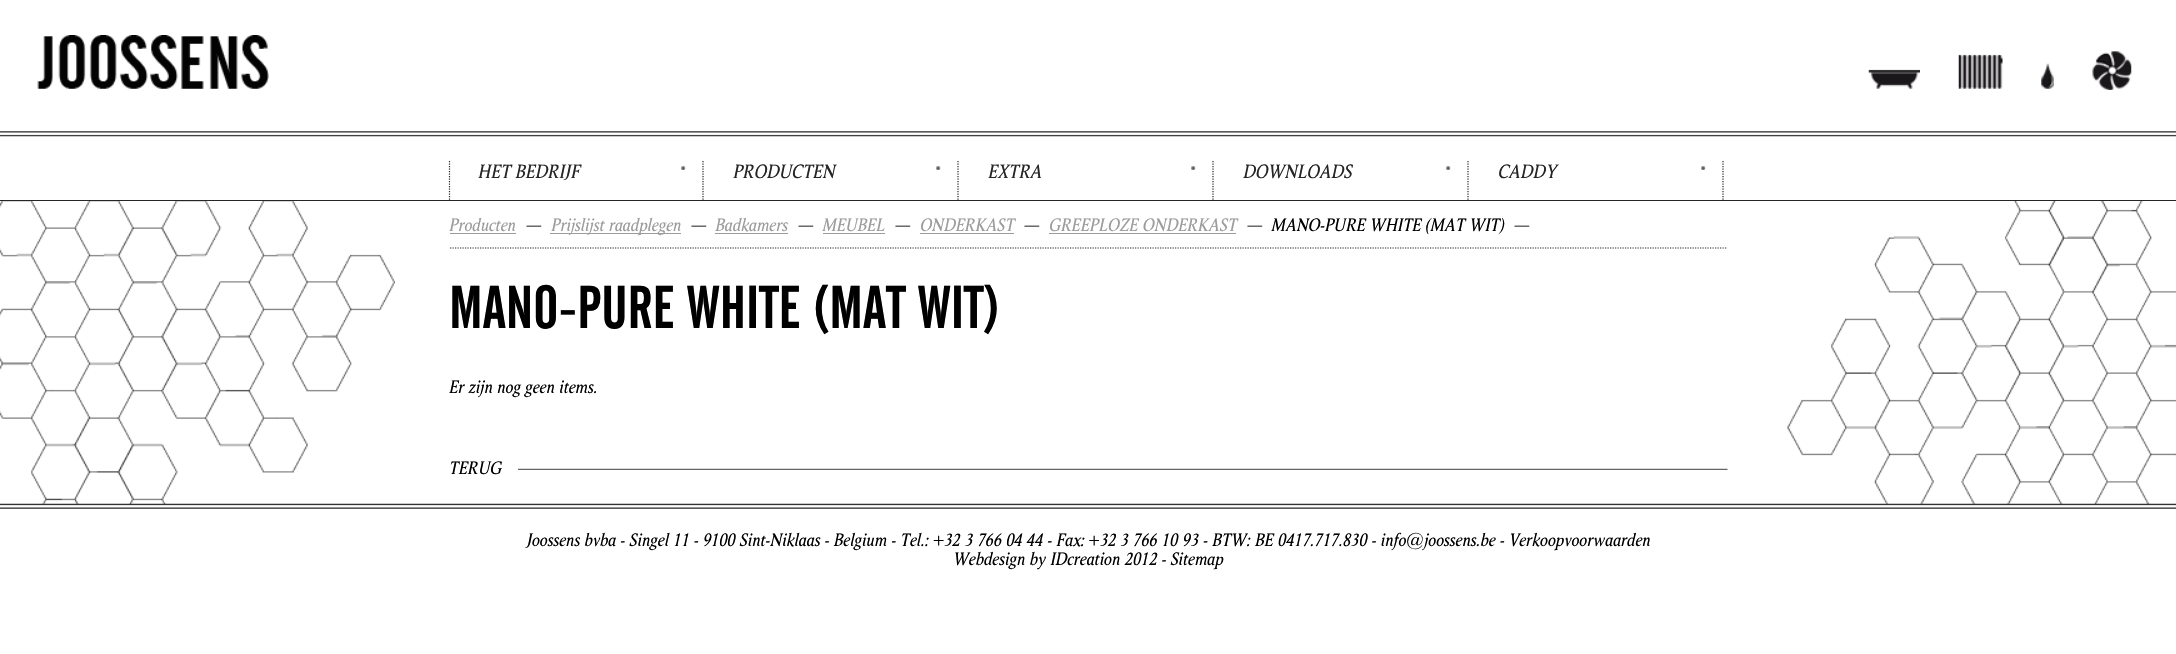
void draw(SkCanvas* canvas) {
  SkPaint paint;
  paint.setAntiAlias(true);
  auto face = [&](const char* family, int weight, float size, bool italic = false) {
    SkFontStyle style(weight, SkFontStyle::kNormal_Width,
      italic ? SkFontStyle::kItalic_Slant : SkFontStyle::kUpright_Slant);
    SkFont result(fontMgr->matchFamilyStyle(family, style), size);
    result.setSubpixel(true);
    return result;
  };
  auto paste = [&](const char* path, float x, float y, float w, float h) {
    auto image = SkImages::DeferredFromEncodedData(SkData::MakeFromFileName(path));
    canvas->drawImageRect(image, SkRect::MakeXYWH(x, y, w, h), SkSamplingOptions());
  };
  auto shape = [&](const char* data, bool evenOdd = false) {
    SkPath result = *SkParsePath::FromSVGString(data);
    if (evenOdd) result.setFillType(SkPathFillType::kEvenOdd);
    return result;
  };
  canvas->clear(0xffffffff);
  paste("img/1.png", 37, 35, 232, 54);
  paste("img/2.png", 1868, 69, 52, 20);
  paste("img/3.png", 1958, 54, 45, 35);
  paste("img/4.png", 2041, 63, 13, 26);
  paste("img/5.png", 2092, 51, 40, 39);
  paste("img/6.png", 0, 131, 2176, 6);
  paint.setColor(0xff252525);
  canvas->drawRect(SkRect::MakeXYWH(0, 200, 2176, 1), paint);
  paint.setStroke(true);
  paint.setStrokeWidth(1.2f);
  paint.setPathEffect(SkDashPathEffect::Make({{1.25f, 1.25f}}, 0));
  canvas->drawPath(shape("M449.5 161V201"), paint);
  paint.setPathEffect(nullptr);
  paste("img/7.png", 681, 166, 5, 4);
  paint.setPathEffect(SkDashPathEffect::Make({{1.25f, 1.25f}}, 0));
  canvas->drawPath(shape("M703 161V201"), paint);
  paint.setPathEffect(nullptr);
  paste("img/7.png", 936, 166, 5, 4);
  paint.setPathEffect(SkDashPathEffect::Make({{1.25f, 1.25f}}, 0));
  canvas->drawPath(shape("M958 161V201"), paint);
  paint.setPathEffect(nullptr);
  paste("img/7.png", 1191, 166, 5, 4);
  paint.setPathEffect(SkDashPathEffect::Make({{1.25f, 1.25f}}, 0));
  canvas->drawPath(shape("M1213 161V201"), paint);
  paint.setPathEffect(nullptr);
  paste("img/7.png", 1446, 166, 5, 4);
  paint.setPathEffect(SkDashPathEffect::Make({{1.25f, 1.25f}}, 0));
  canvas->drawPath(shape("M1468 161V201"), paint);
  paint.setPathEffect(nullptr);
  paste("img/7.png", 1701, 166, 5, 4);
  paint.setPathEffect(SkDashPathEffect::Make({{1.25f, 1.25f}}, 0));
  canvas->drawPath(shape("M1723 161V201"), paint);
  paint.setPathEffect(nullptr);
  paste("img/8.png", 0, 201, 395, 303);
  paint.setPathEffect(SkDashPathEffect::Make({{1.25f, 1.25f}}, 0));
  canvas->drawPath(shape("M450 248H1727.5"), paint);
  paint.setPathEffect(nullptr);
  paint.setStroke(false);
  {
    const struct { float x, y, w, h; SkColor color; } items[] = {
      {450, 233, 66, 1, 0xff9c9c9c},
      {550, 233, 131, 1, 0xff9c9c9c},
      {715, 233, 73, 1, 0xff9c9c9c},
      {823, 233, 62, 1, 0xff9c9c9c},
      {920, 233, 94, 1, 0xff9c9c9c},
      {1049, 233, 187, 1, 0xff9c9c9c},
    };
    for (auto [x, y, w, h, color] : items) {
      paint.setColor(color);
      canvas->drawRect(SkRect::MakeXYWH(x, y, w, h), paint);
    }
  }
  paste("img/9.png", 518, 468, 1210, 2);
  paste("img/10.png", 1787, 201, 389, 303);
  paste("img/11.png", 0, 503, 2176, 6);
  auto f0 = face("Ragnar", 400, 20, true);
  paint.setColor(0xff252525);
  {
    const struct { const char* s; float x, y; } items[] = {
      {"HET BEDRIJF", 478, 178},
      {"PRODUCTEN", 733, 178},
      {"EXTRA", 988, 178},
      {"DOWNLOADS", 1243, 178},
      {"CADDY", 1498, 178},
    };
    for (auto [s, x, y] : items) {
      canvas->drawString(s, x, y, f0, paint);
    }
  }
  auto f1 = face("Ragnar", 400, 18.75f, true);
  paint.setColor(0xff9c9c9c);
  canvas->drawString("Producten", 449, 231, f1, paint);
  paint.setColor(0xff000000);
  canvas->drawString("—", 526, 231, f1, paint);
  paint.setColor(0xff9c9c9c);
  canvas->drawString("Prijslijst raadplegen", 551, 231, f1, paint);
  paint.setColor(0xff000000);
  canvas->drawString("—", 691, 231, f1, paint);
  paint.setColor(0xff9c9c9c);
  canvas->drawString("Badkamers", 715, 231, f1, paint);
  paint.setColor(0xff000000);
  canvas->drawString("—", 798, 231, f1, paint);
  paint.setColor(0xff9c9c9c);
  canvas->drawString("MEUBEL", 822, 231, f1, paint);
  paint.setColor(0xff000000);
  canvas->drawString("—", 895, 231, f1, paint);
  paint.setColor(0xff9c9c9c);
  canvas->drawString("ONDERKAST", 920, 231, f1, paint);
  paint.setColor(0xff000000);
  canvas->drawString("—", 1024, 231, f1, paint);
  paint.setColor(0xff9c9c9c);
  canvas->drawString("GREEPLOZE ONDERKAST", 1049, 231, f1, paint);
  paint.setColor(0xff000000);
  {
    const struct { const char* s; float x, y; } items[] = {
      {"—", 1247, 231},
      {"MANO-PURE WHITE (MAT WIT)", 1271, 231},
      {"—", 1514, 231},
    };
    for (auto [s, x, y] : items) {
      canvas->drawString(s, x, y, f1, paint);
    }
  }
  auto f2 = face("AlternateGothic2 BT", 400, 60);
  canvas->drawString("MANO-PURE WHITE (MAT WIT)", 449, 328, f2, paint);
  {
    const struct { const char* s; float x, y; } items[] = {
      {"Er zijn nog geen items.", 449, 393},
      {"TERUG", 449, 474},
      {"Joossens bvba - Singel 11 - 9100 Sint-Niklaas - Belgium - Tel.: +32 3 766 04 44 - Fax: +32 3 766 10 93 - BTW: BE 0417.717.830 - info@joossens.be - Verkoopvoorwaarden", 526, 546},
      {"Webdesign by IDcreation 2012 - Sitemap", 953, 565},
    };
    for (auto [s, x, y] : items) {
      canvas->drawString(s, x, y, f1, paint);
    }
  }
}
